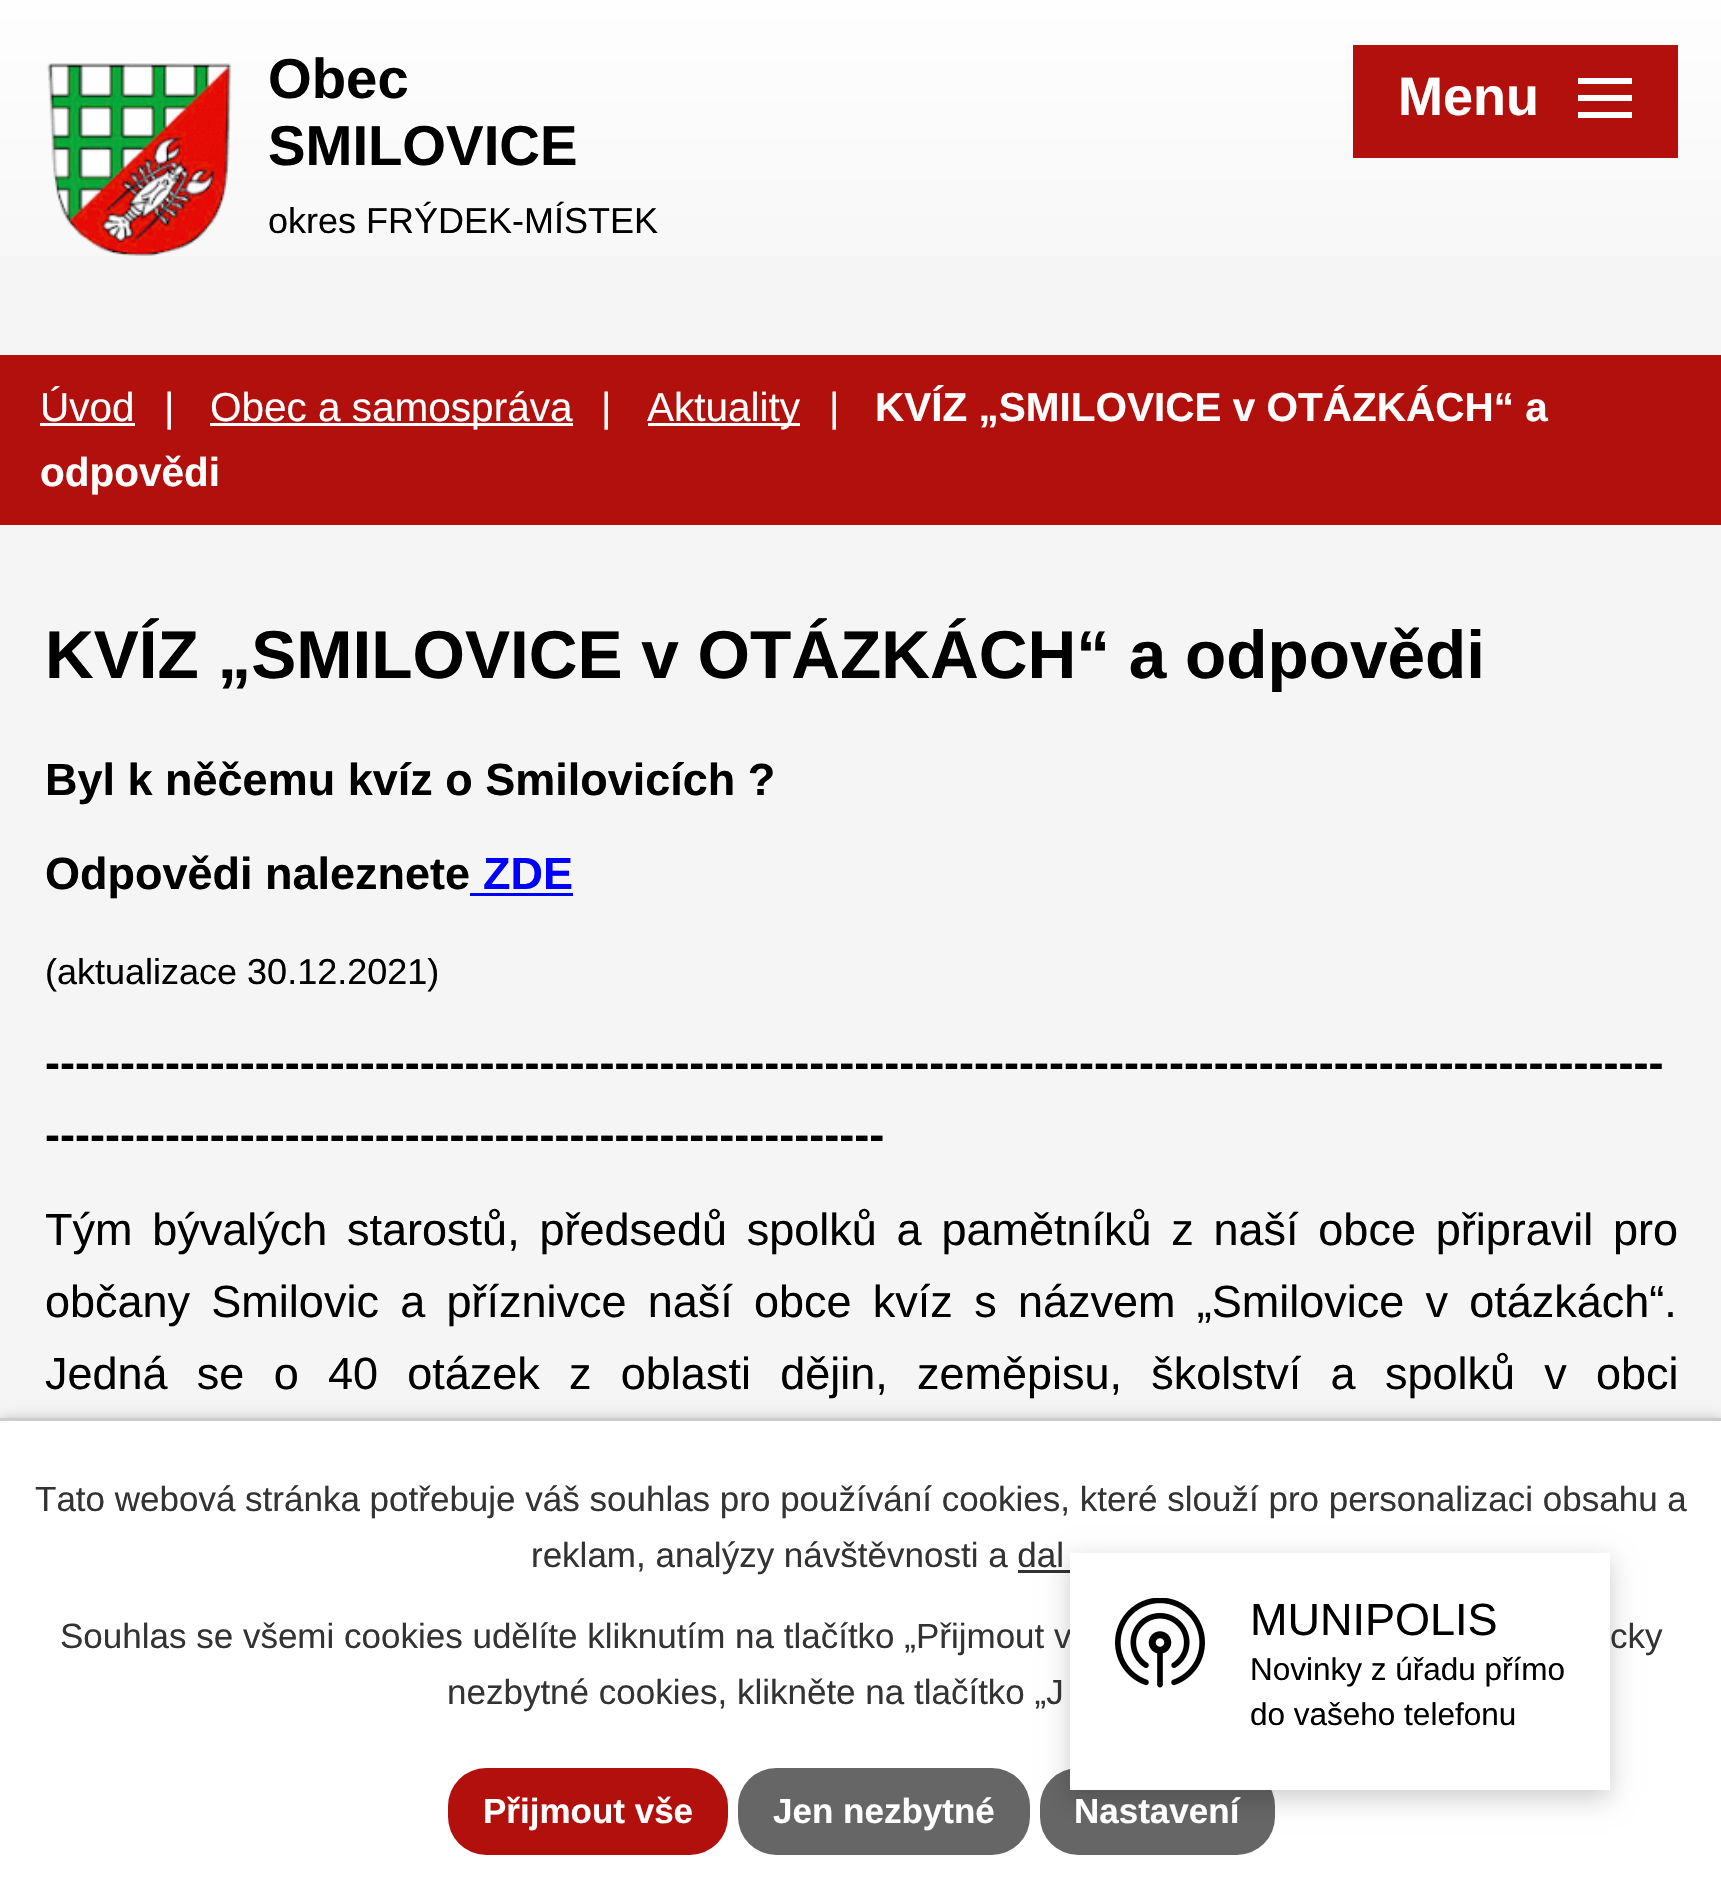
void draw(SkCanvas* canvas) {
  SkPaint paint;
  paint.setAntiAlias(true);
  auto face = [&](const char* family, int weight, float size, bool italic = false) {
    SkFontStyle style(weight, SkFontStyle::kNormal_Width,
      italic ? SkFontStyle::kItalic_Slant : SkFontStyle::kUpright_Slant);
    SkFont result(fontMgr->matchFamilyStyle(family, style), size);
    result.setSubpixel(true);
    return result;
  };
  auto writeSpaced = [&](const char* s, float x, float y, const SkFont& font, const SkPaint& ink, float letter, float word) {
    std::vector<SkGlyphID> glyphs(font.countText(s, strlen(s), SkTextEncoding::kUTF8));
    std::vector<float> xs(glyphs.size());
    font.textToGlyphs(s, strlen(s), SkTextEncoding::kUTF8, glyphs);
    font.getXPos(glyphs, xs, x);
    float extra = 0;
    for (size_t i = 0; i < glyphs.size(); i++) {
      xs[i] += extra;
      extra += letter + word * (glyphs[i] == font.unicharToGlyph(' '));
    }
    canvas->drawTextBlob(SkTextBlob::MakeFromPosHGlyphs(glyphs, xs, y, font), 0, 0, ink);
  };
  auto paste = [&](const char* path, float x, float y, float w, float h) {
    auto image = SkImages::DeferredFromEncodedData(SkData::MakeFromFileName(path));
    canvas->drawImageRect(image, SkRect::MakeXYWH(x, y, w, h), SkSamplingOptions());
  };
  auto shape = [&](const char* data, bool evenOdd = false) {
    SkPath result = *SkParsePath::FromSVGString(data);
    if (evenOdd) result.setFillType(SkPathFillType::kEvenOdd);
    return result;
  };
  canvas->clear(0xfff5f5f5);
  {
    const SkColor colors[] = {0xfffefefe, 0xfff5f5f5};
    const float stops[] = {0, 1};
    const SkPoint ends[] = {{861, 0}, {861, 355}};
    paint.setShader(SkGradientShader::MakeLinear(ends, colors, stops, 2, SkTileMode::kClamp));
    paint.setAlpha(255);
  }
  canvas->drawRect(SkRect::MakeXYWH(0, 0, 1721, 256), paint);
  paste("img/1.png", 46, 63, 186, 193);
  paint.setShader(nullptr);
  paint.setColor(0xffb2100d);
  canvas->drawRect(SkRect::MakeXYWH(1353, 45, 325, 113), paint);
  paint.setColor(0xffffffff);
  canvas->drawPath(shape("M1578 118V112H1632V118ZM1578 78H1632V84H1578ZM1578 101V95H1632V101Z"), paint);
  {
    const struct { float x, y, w, h; SkColor color; } items[] = {
      {0, 355, 1721, 170, 0xffb2100d},
      {40, 423, 95, 3, 0xffffffff},
      {210, 423, 363, 3, 0xffffffff},
      {648, 423, 152, 3, 0xffffffff},
      {470, 893, 103, 3, 0xff0000ff},
    };
    for (auto [x, y, w, h, color] : items) {
      paint.setColor(color);
      canvas->drawRect(SkRect::MakeXYWH(x, y, w, h), paint);
    }
  }
  paint.setColor(0x33000000);
  paint.setMaskFilter(SkMaskFilter::MakeBlur(kNormal_SkBlurStyle, 6));
  canvas->drawRect(SkRect::MakeXYWH(0, 1418, 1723, 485), paint);
  paint.setMaskFilter(nullptr);
  paint.setColor(0xffffffff);
  canvas->drawRect(SkRect::MakeXYWH(0, 1421, 1721, 481), paint);
  paint.setColor(0xff333333);
  canvas->drawRect(SkRect::MakeXYWH(1018, 1570, 52, 3), paint);
  paint.setColor(0xff666666);
  canvas->drawRoundRect(SkRect::MakeXYWH(1040, 1768, 235, 87), 38, 38, paint);
  paint.setColor(0x33000000);
  paint.setMaskFilter(SkMaskFilter::MakeBlur(kNormal_SkBlurStyle, 12.5f));
  canvas->drawRect(SkRect::MakeXYWH(1070, 1560, 540, 238), paint);
  paint.setMaskFilter(nullptr);
  paint.setColor(0xffcccccc);
  canvas->drawRect(SkRect::MakeXYWH(0, 1418, 1721, 3), paint);
  paint.setColor(0xffb2100d);
  canvas->drawRoundRect(SkRect::MakeXYWH(448, 1768, 280, 87), 38, 38, paint);
  paint.setColor(0xff666666);
  canvas->drawRoundRect(SkRect::MakeXYWH(738, 1768, 292, 87), 38, 38, paint);
  auto f0 = face("Liberation Sans", 700, 56.25f);
  paint.setColor(0xff000000);
  canvas->drawString("Obec", 268, 98, f0, paint);
  canvas->drawString("SMILOVICE", 268, 165, f0, paint);
  auto f1 = face("Liberation Sans", 400, 36);
  canvas->drawString("okres FRÝDEK-MÍSTEK", 268, 233, f1, paint);
  auto f2 = face("Liberation Sans", 700, 54);
  paint.setColor(0xffffffff);
  canvas->drawString("Menu", 1398, 115, f2, paint);
  auto f3 = face("Liberation Sans", 400, 40.5f);
  {
    const struct { const char* s; float x, y; } items[] = {
      {"Úvod", 40, 421},
      {"|", 164, 421},
      {"Obec a samospráva", 210, 421},
      {"|", 601, 421},
      {"Aktuality", 647, 421},
      {"|", 829, 421},
    };
    for (auto [s, x, y] : items) {
      canvas->drawString(s, x, y, f3, paint);
    }
  }
  auto f4 = face("Liberation Sans", 700, 40.5f);
  canvas->drawString("KVÍZ „SMILOVICE v OTÁZKÁCH“ a", 875, 421, f4, paint);
  canvas->drawString("odpovědi", 40, 486, f4, paint);
  auto f5 = face("Liberation Sans", 700, 67.5f);
  paint.setColor(0xff000000);
  canvas->drawString("KVÍZ „SMILOVICE v OTÁZKÁCH“ a odpovědi", 45, 678, f5, paint);
  auto f6 = face("Liberation Sans", 700, 45);
  canvas->drawString("Byl k něčemu kvíz o Smilovicích ?", 45, 795, f6, paint);
  canvas->drawString("Odpovědi naleznete", 45, 889, f6, paint);
  paint.setColor(0xff0000ff);
  canvas->drawString("ZDE", 483, 889, f6, paint);
  paint.setColor(0xff000000);
  canvas->drawString("(aktualizace 30.12.2021)", 45, 984, f1, paint);
  canvas->drawString("------------------------------------------------------------------------------------------------------------", 45, 1078, f6, paint);
  canvas->drawString("--------------------------------------------------------", 45, 1150, f6, paint);
  auto f7 = face("Liberation Sans", 400, 45);
  writeSpaced("Tým bývalých starostů, předsedů spolků a pamětníků z naší obce připravil pro", 45, 1245, f7, paint, 0, 7.25f);
  writeSpaced("občany Smilovic a příznivce naší obce kvíz s názvem „Smilovice v otázkách“.", 45, 1317, f7, paint, 0, 8.75f);
  writeSpaced("Jedná se o 40 otázek z oblasti dějin, zeměpisu, školství a spolků v obci", 45, 1389, f7, paint, 0, 16.75f);
  auto f8 = face("Liberation Sans", 400, 35);
  paint.setColor(0xff333333);
  {
    const struct { const char* s; float x, y; } items[] = {
      {"Tato webová stránka potřebuje váš souhlas pro používání cookies, které slouží pro personalizaci obsahu a", 35, 1511},
      {"reklam, analýzy návštěvnosti a dal", 531, 1567},
      {"Souhlas se všemi cookies udělíte kliknutím na tlačítko „Přijmout v", 60, 1648},
    };
    for (auto [s, x, y] : items) {
      canvas->drawString(s, x, y, f8, paint);
    }
  }
  paint.setColor(0xffffffff);
  canvas->drawRect(SkRect::MakeXYWH(1070, 1553, 540, 237), paint);
  paste("img/2.png", 1115, 1598, 90, 90);
  auto f9 = face("Liberation Sans", 400, 31.5f);
  paint.setColor(0xff000000);
  canvas->drawString("do vašeho telefonu", 1250, 1725, f9, paint);
  canvas->drawString("Novinky z úřadu přímo", 1250, 1680, f9, paint);
  canvas->drawString("MUNIPOLIS", 1250, 1635, f7, paint);
  paint.setColor(0xff333333);
  canvas->drawString("cky", 1610, 1648, f8, paint);
  canvas->drawString("nezbytné cookies, klikněte na tlačítko „J", 447, 1704, f8, paint);
  auto f10 = face("Liberation Sans", 700, 35);
  paint.setColor(0xffffffff);
  {
    const struct { const char* s; float x, y; } items[] = {
      {"Přijmout vše", 483, 1823},
      {"Jen nezbytné", 773, 1823},
      {"Nastavení", 1074, 1823},
    };
    for (auto [s, x, y] : items) {
      canvas->drawString(s, x, y, f10, paint);
    }
  }
}
